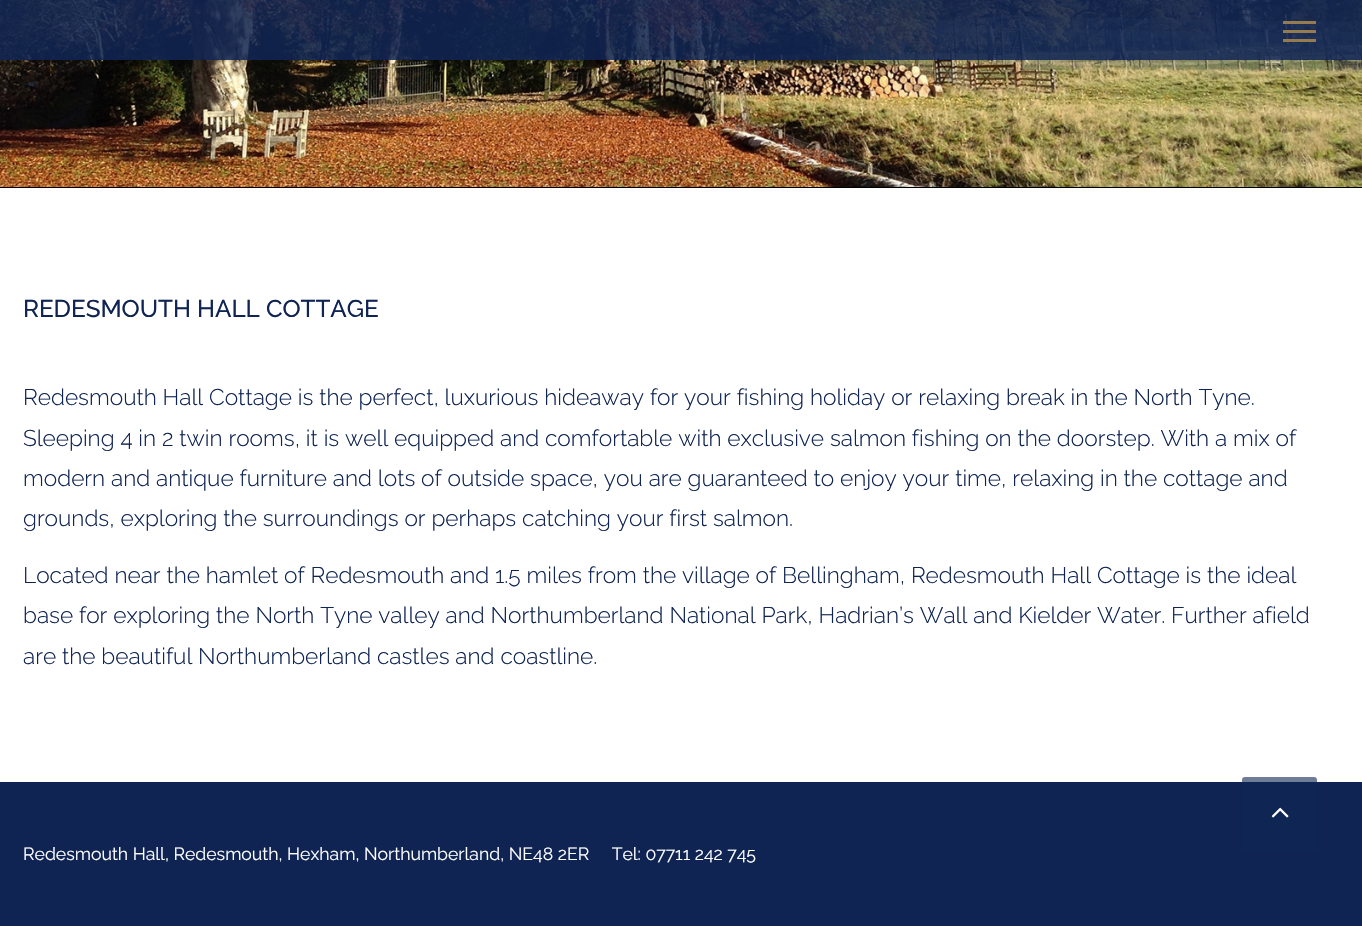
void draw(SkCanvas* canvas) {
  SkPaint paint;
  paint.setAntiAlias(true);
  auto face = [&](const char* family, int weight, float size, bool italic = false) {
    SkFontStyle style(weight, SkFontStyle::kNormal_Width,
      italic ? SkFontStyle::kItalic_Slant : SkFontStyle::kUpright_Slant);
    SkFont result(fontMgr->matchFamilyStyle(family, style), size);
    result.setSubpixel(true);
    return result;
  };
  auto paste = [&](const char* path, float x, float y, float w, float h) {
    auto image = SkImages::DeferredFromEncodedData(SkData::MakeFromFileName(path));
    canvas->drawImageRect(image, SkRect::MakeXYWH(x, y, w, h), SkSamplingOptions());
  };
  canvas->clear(0xffffffff);
  paste("img/1.png", 0, 0, 1362, 187);
  {
    const struct { float x, y, w, h; SkColor color; } items[] = {
      {0, 0, 1362, 60, 0xd90f2453},
      {1283, 30, 33, 3, 0xff967a50},
      {1283, 21, 33, 3, 0xff967a50},
      {1283, 39, 33, 3, 0xff967a50},
      {0, 187, 1362, 1, 0xff000000},
      {0, 782, 1362, 144, 0xff0f2453},
    };
    for (auto [x, y, w, h, color] : items) {
      paint.setColor(color);
      canvas->drawRect(SkRect::MakeXYWH(x, y, w, h), paint);
    }
  }
  paint.setColor(0x990f2453);
  canvas->drawRoundRect(SkRect::MakeXYWH(1242, 777, 75, 75), 3, 3, paint);
  paste("img/2.png", 1271, 807, 18, 11);
  auto f0 = face("Raleway", 500, 24.25f);
  paint.setColor(0xff0f2453);
  canvas->drawString("REDESMOUTH HALL COTTAGE", 23, 317, f0, paint);
  auto f1 = face("Raleway", 300, 22.68f);
  {
    const struct { const char* s; float x, y; } items[] = {
      {"Redesmouth Hall Cottage is the perfect, luxurious hideaway for your fishing holiday or relaxing break in the North Tyne.", 23, 405},
      {"Sleeping 4 in 2 twin rooms, it is well equipped and comfortable with exclusive salmon fishing on the doorstep. With a mix of", 23, 446},
      {"modern and antique furniture and lots of outside space, you are guaranteed to enjoy your time, relaxing in the cottage and", 23, 486},
      {"grounds, exploring the surroundings or perhaps catching your first salmon.", 23, 526},
      {"Located near the hamlet of Redesmouth and 1.5 miles from the village of Bellingham, Redesmouth Hall Cottage is the ideal", 23, 583},
      {"base for exploring the North Tyne valley and Northumberland National Park, Hadrian’s Wall and Kielder Water. Further afield", 23, 623},
      {"are the beautiful Northumberland castles and coastline.", 23, 664},
    };
    for (auto [s, x, y] : items) {
      canvas->drawString(s, x, y, f1, paint);
    }
  }
  auto f2 = face("Raleway", 400, 17.65f);
  paint.setColor(0xffffffff);
  canvas->drawString("Redesmouth Hall, Redesmouth, Hexham, Northumberland, NE48 2ER     Tel: 07711 242 745", 23, 860, f2, paint);
}
